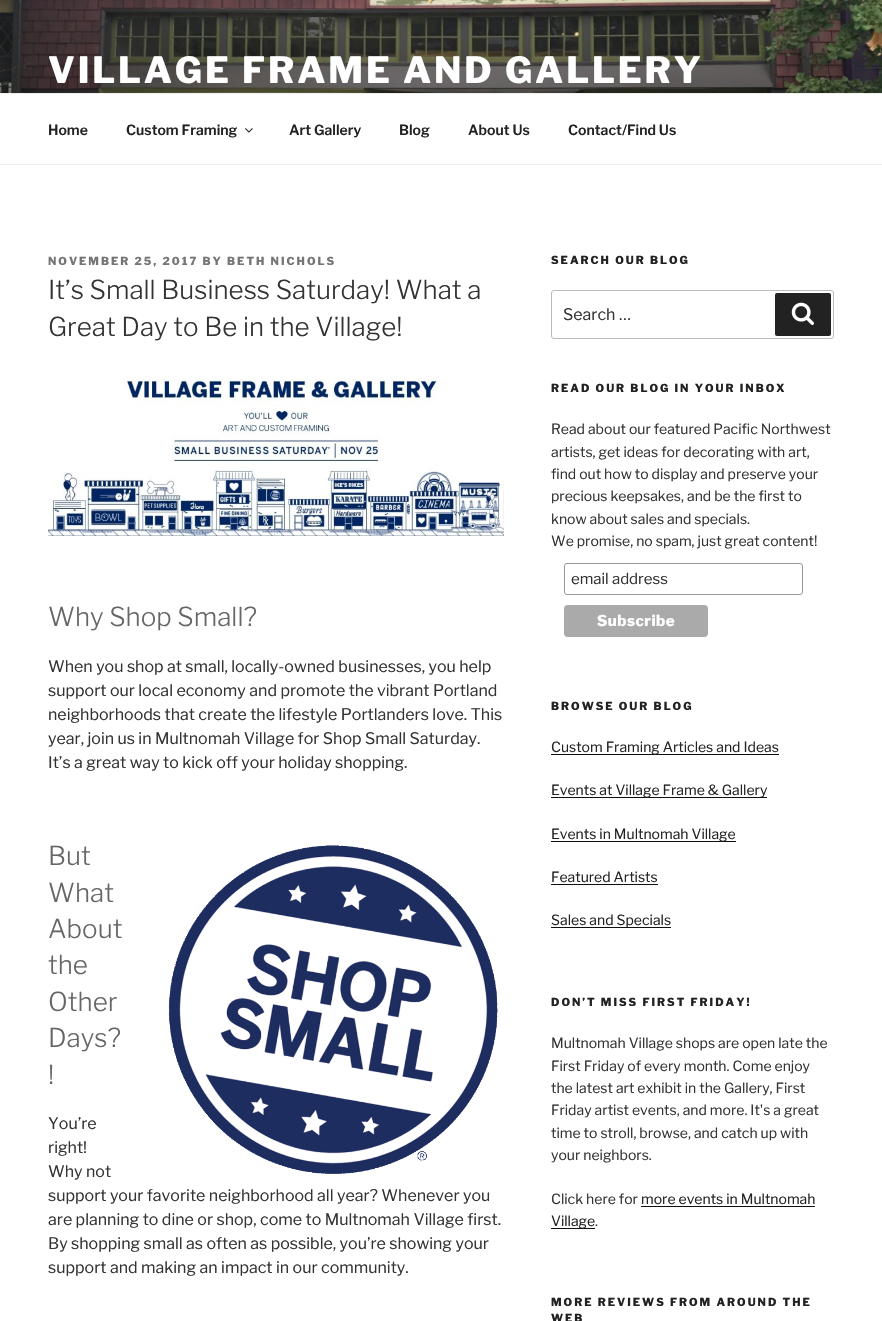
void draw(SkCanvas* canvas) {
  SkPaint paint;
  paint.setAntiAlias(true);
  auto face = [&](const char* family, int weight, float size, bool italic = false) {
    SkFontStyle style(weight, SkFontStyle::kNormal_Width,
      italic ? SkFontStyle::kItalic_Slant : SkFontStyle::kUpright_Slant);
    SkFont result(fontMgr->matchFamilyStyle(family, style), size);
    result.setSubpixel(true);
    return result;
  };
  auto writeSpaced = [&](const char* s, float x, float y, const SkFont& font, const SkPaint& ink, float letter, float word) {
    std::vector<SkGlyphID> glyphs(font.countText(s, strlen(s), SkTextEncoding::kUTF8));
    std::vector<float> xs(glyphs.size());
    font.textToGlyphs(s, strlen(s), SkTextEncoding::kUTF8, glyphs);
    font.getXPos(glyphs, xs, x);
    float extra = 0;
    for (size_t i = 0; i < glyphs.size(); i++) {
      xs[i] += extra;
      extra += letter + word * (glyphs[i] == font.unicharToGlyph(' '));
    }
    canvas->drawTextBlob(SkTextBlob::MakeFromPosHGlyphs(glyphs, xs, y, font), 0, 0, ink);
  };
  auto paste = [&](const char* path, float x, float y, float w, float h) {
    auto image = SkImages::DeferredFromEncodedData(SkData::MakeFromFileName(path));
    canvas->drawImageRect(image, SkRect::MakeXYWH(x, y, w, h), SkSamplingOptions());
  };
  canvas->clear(0xffffffff);
  paste("img/1.png", 0, 0, 882, 93);
  paint.setColor(0xffeeeeee);
  canvas->drawRect(SkRect::MakeXYWH(0, 93, 882, 1), paint);
  canvas->drawRect(SkRect::MakeXYWH(0, 164, 882, 1), paint);
  paste("img/2.png", 245, 128, 8, 5);
  paste("img/3.png", 48, 377, 456, 159);
  paste("img/4.png", 168, 845, 330, 329);
  paint.setStroke(true);
  paint.setStrokeWidth(1);
  paint.setColor(0xffbbbbbb);
  canvas->drawRoundRect(SkRect::MakeXYWH(551.5f, 290.5f, 282, 48), 2.5f, 2.5f, paint);
  paint.setStroke(false);
  paint.setColor(0xff222222);
  canvas->drawRoundRect(SkRect::MakeXYWH(775, 293, 56, 43), 2, 2, paint);
  paste("img/5.png", 791, 302, 23, 23);
  paint.setStroke(true);
  paint.setColor(0xff999999);
  canvas->drawRoundRect(SkRect::MakeXYWH(564.5f, 563.5f, 238, 31), 2.5f, 2.5f, paint);
  paint.setStroke(false);
  paint.setColor(0xffaaaaaa);
  canvas->drawRoundRect(SkRect::MakeXYWH(564, 605, 144, 32), 4, 4, paint);
  {
    const struct { float x, y, w, h; SkColor color; } items[] = {
      {551, 754, 228, 1, 0xff0f0f0f},
      {551, 797, 216, 1, 0xff0f0f0f},
      {551, 841, 185, 1, 0xff0f0f0f},
      {551, 884, 107, 1, 0xff0f0f0f},
      {551, 927, 120, 1, 0xff0f0f0f},
      {641, 1206, 174, 1, 0xff0f0f0f},
      {551, 1228, 44, 1, 0xff0f0f0f},
    };
    for (auto [x, y, w, h, color] : items) {
      paint.setColor(color);
      canvas->drawRect(SkRect::MakeXYWH(x, y, w, h), paint);
    }
  }
  auto f0 = face("Libre Franklin", 100, 36);
  paint.setColor(0xffffffff);
  writeSpaced("VILLAGE FRAME AND GALLERY", 48, 83, f0, paint, 2.9f, 0);
  auto f1 = face("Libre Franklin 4", 100, 14);
  paint.setColor(0xff222222);
  {
    const struct { const char* s; float x, y; } items[] = {
      {"Home", 48, 135},
      {"Custom Framing", 126, 135},
      {"Art Gallery", 289, 135},
      {"Blog", 399, 135},
      {"About Us", 468, 135},
      {"Contact/Find Us", 568, 135},
    };
    for (auto [s, x, y] : items) {
      canvas->drawString(s, x, y, f1, paint);
    }
  }
  auto f2 = face("Libre Franklin", 100, 11);
  paint.setColor(0xff767676);
  writeSpaced("NOVEMBER 25, 2017 BY BETH NICHOLS", 48, 265, f2, paint, 2, 0);
  auto f3 = face("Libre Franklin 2", 100, 26);
  paint.setColor(0xff333333);
  canvas->drawString("It’s Small Business Saturday! What a", 48, 299, f3, paint);
  canvas->drawString("Great Day to Be in the Village!", 48, 336, f3, paint);
  paint.setColor(0xff666666);
  canvas->drawString("Why Shop Small?", 48, 626, f3, paint);
  auto f4 = face("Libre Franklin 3", 100, 16);
  paint.setColor(0xff333333);
  {
    const struct { const char* s; float x, y; } items[] = {
      {"When you shop at small, locally-owned businesses, you help", 48, 672},
      {"support our local economy and promote the vibrant Portland", 48, 696},
      {"neighborhoods that create the lifestyle Portlanders love. This", 48, 720},
      {"year, join us in Multnomah Village for Shop Small Saturday.", 48, 744},
      {"It’s a great way to kick off your holiday shopping.", 48, 768},
    };
    for (auto [s, x, y] : items) {
      canvas->drawString(s, x, y, f4, paint);
    }
  }
  paint.setColor(0xff666666);
  {
    const struct { const char* s; float x, y; } items[] = {
      {"But", 48, 865},
      {"What", 48, 902},
      {"About", 48, 938},
      {"the", 48, 974},
      {"Other", 48, 1011},
      {"Days?", 48, 1047},
      {"!", 48, 1084},
    };
    for (auto [s, x, y] : items) {
      canvas->drawString(s, x, y, f3, paint);
    }
  }
  paint.setColor(0xff333333);
  {
    const struct { const char* s; float x, y; } items[] = {
      {"You’re", 48, 1129},
      {"right!", 48, 1153},
      {"Why not", 48, 1177},
      {"support your favorite neighborhood all year? Whenever you", 48, 1201},
      {"are planning to dine or shop, come to Multnomah Village first.", 48, 1225},
      {"By shopping small as often as possible, you’re showing your", 48, 1249},
      {"support and making an impact in our community.", 48, 1273},
    };
    for (auto [s, x, y] : items) {
      canvas->drawString(s, x, y, f4, paint);
    }
  }
  paint.setColor(0xff222222);
  writeSpaced("SEARCH OUR BLOG", 551, 264, f2, paint, 2, 0);
  paint.setColor(0xff333333);
  canvas->drawString("Search …", 563, 320, f4, paint);
  paint.setColor(0xff222222);
  writeSpaced("READ OUR BLOG IN YOUR INBOX", 551, 392, f2, paint, 2, 0);
  auto f5 = face("Libre Franklin 3", 100, 14);
  paint.setColor(0xff333333);
  {
    const struct { const char* s; float x, y; } items[] = {
      {"Read about our featured Pacific Northwest", 551, 434},
      {"artists, get ideas for decorating with art,", 551, 457},
      {"find out how to display and preserve your", 551, 479},
      {"precious keepsakes, and be the first to", 551, 501},
      {"know about sales and specials.", 551, 524},
      {"We promise, no spam, just great content!", 551, 546},
    };
    for (auto [s, x, y] : items) {
      canvas->drawString(s, x, y, f5, paint);
    }
  }
  auto f6 = face("Libre Franklin 3", 100, 15);
  canvas->drawString("email address", 571, 584, f6, paint);
  auto f7 = face("Libre Franklin", 100, 15);
  paint.setColor(0xffffffff);
  writeSpaced("Subscribe", 597, 626, f7, paint, 0.5f, 0);
  paint.setColor(0xff222222);
  writeSpaced("BROWSE OUR BLOG", 551, 710, f2, paint, 2, 0);
  {
    const struct { const char* s; float x, y; } items[] = {
      {"Custom Framing Articles and Ideas", 551, 752},
      {"Events at Village Frame & Gallery", 551, 795},
      {"Events in Multnomah Village", 551, 839},
      {"Featured Artists", 551, 882},
      {"Sales and Specials", 551, 925},
    };
    for (auto [s, x, y] : items) {
      canvas->drawString(s, x, y, f5, paint);
    }
  }
  writeSpaced("DON’T MISS FIRST FRIDAY!", 551, 1006, f2, paint, 2, 0);
  paint.setColor(0xff333333);
  {
    const struct { const char* s; float x, y; } items[] = {
      {"Multnomah Village shops are open late the", 551, 1048},
      {"First Friday of every month. Come enjoy", 551, 1071},
      {"the latest art exhibit in the Gallery, First", 551, 1093},
      {"Friday artist events, and more. It's a great", 551, 1115},
      {"time to stroll, browse, and catch up with", 551, 1138},
      {"your neighbors.", 551, 1160},
      {"Click here for", 551, 1204},
    };
    for (auto [s, x, y] : items) {
      canvas->drawString(s, x, y, f5, paint);
    }
  }
  paint.setColor(0xff222222);
  canvas->drawString("more events in Multnomah", 641, 1204, f5, paint);
  canvas->drawString("Village", 551, 1226, f5, paint);
  paint.setColor(0xff333333);
  canvas->drawString(".", 595, 1226, f5, paint);
  paint.setColor(0xff222222);
  writeSpaced("MORE REVIEWS FROM AROUND THE", 551, 1306, f2, paint, 2, 0);
  writeSpaced("WEB", 551, 1322, f2, paint, 2, 0);
}
